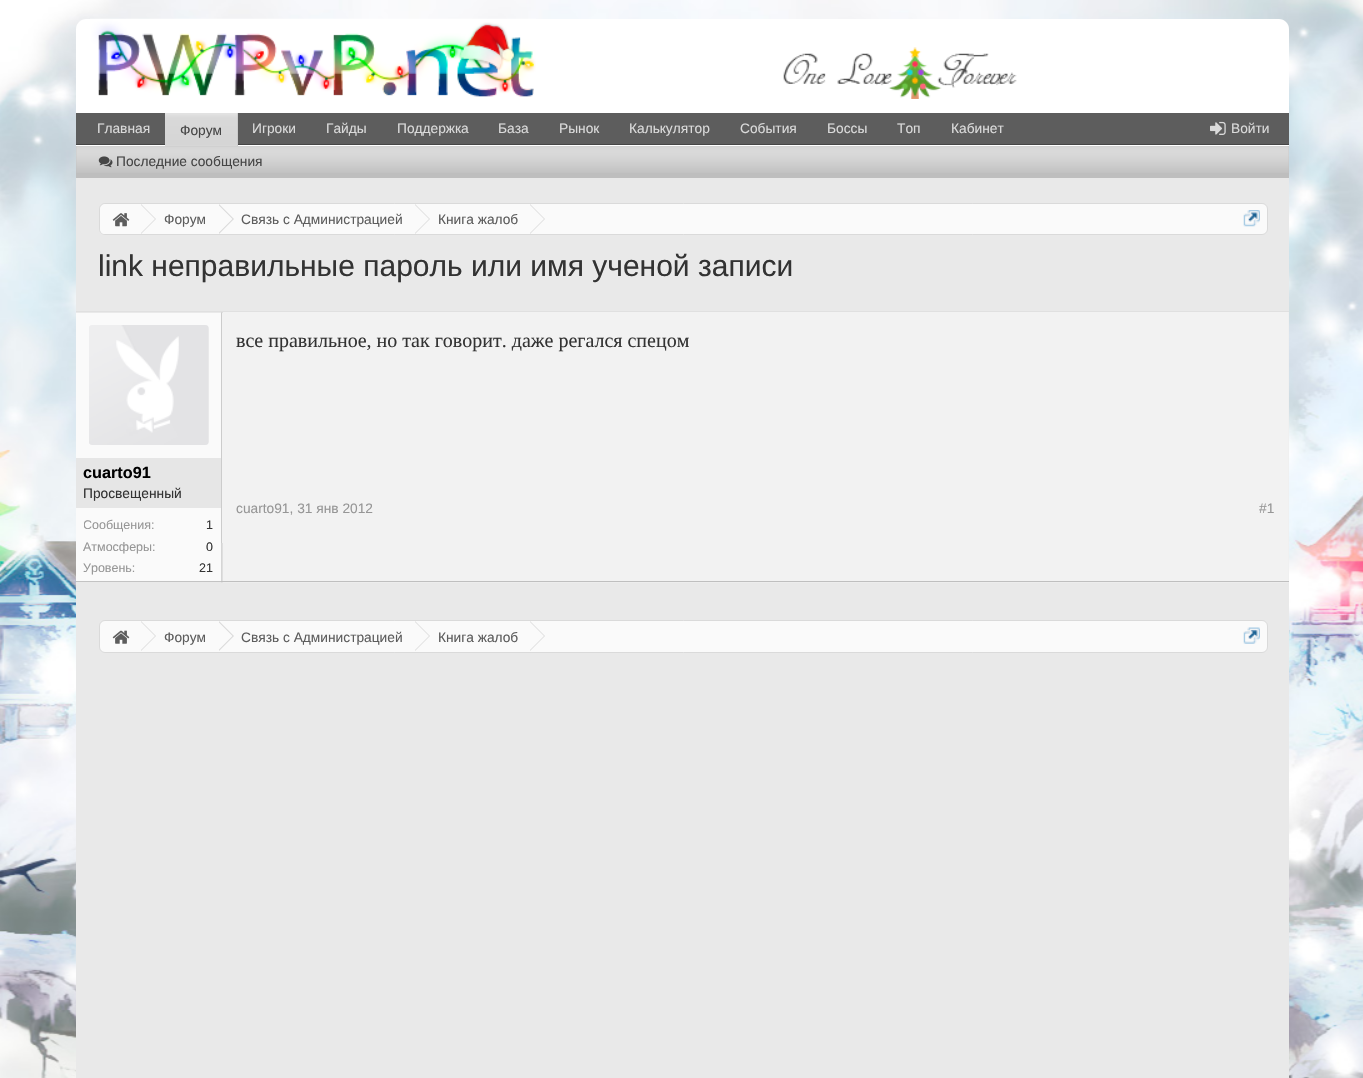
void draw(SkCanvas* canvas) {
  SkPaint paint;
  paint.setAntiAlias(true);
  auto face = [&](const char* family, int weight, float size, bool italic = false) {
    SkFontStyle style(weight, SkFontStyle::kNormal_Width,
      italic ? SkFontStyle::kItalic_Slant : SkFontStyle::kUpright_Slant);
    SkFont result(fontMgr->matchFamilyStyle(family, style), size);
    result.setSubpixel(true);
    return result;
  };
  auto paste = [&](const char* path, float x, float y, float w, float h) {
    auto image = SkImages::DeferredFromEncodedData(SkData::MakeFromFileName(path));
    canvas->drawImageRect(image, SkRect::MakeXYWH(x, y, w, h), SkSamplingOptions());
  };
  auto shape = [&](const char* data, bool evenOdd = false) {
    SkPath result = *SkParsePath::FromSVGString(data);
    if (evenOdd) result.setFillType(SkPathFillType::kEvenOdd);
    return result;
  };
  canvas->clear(0xffffffff);
  paste("img/1.png", 0, 0, 1363, 1078);
  paint.setColor(0xffffffff);
  canvas->drawPath(shape("M86 19H1279C1284.5 19 1289 23.5 1289 29V113H76V29C76 23.5 80.5 19 86 19Z"), paint);
  paste("img/2.png", 90, 18, 446, 79);
  paste("img/4.png", 826, 47, 203, 52);
  paste("img/3.png", 783, 47, 246, 52);
  {
    const struct { float x, y, w, h; SkColor color; } items[] = {
      {76, 145, 1213, 1, 0xffffffff},
      {76, 113, 1213, 31, 0xff5d5d5d},
      {76, 144, 1213, 1, 0xff464646},
      {165, 113, 73, 33, 0xffbebebe},
    };
    for (auto [x, y, w, h, color] : items) {
      paint.setColor(color);
      canvas->drawRect(SkRect::MakeXYWH(x, y, w, h), paint);
    }
  }
  paste("img/5.png", 165, 113, 73, 33);
  canvas->drawRect(SkRect::MakeXYWH(76, 146, 1213, 32), paint);
  paste("img/6.png", 76, 146, 1213, 27);
  paste("img/7.png", 98, 156, 15, 12);
  paste("img/8.png", 1210, 121, 16, 14);
  paint.setColor(0xffe9e9e9);
  canvas->drawRect(SkRect::MakeXYWH(76, 178, 1213, 900), paint);
  paint.setColor(0xfffafafa);
  canvas->drawRoundRect(SkRect::MakeXYWH(99.5f, 203.5f, 1168, 31), 5.5f, 5.5f, paint);
  paint.setStroke(true);
  paint.setStrokeWidth(1);
  paint.setColor(0xffdadada);
  canvas->drawRoundRect(SkRect::MakeXYWH(99.5f, 203.5f, 1168, 31), 5.5f, 5.5f, paint);
  canvas->save();
  canvas->clipPath(shape("M105 204H1261C1264 204 1266 206 1266 209V229C1266 232 1264 234 1261 234H105C102 234 100 232 100 229V209C100 206 102 204 105 204Z"), true);
  paint.setStroke(false);
  paint.setColor(0xfffafafa);
  canvas->drawPath(shape("M106 204H141V235H106C102.5 235 100 232.5 100 229V210C100 206.5 102.5 204 106 204Z"), paint);
  canvas->restore();
  paste("img/9.png", 112, 213, 18, 14);
  paint.setColor(0xffdadada);
  canvas->drawPath(shape("M141 234V204L156 219Z"), paint);
  paint.setColor(0xfffafafa);
  canvas->drawPath(shape("M140 234V204L155 219Z"), paint);
  paint.setColor(0xffdadada);
  canvas->drawPath(shape("M219 234V204L234 219Z"), paint);
  paint.setColor(0xfffafafa);
  canvas->drawPath(shape("M217.5 234V204L232.5 219Z"), paint);
  paint.setColor(0xffdadada);
  canvas->drawPath(shape("M415 234V204L430 219Z"), paint);
  paint.setColor(0xfffafafa);
  canvas->drawPath(shape("M414 234V204L429 219Z"), paint);
  paint.setColor(0xffdadada);
  canvas->drawPath(shape("M530 234V204L545 219Z"), paint);
  paint.setColor(0xfffafafa);
  canvas->drawPath(shape("M529 234V204L544 219Z"), paint);
  paste("img/10.png", 1243, 210, 17, 17);
  paste("img/11.png", 221, 312, 1068, 271);
  {
    const struct { float x, y, w, h; SkColor color; } items[] = {
      {76, 311, 1213, 1, 0xffe0e0e0},
      {76, 581, 1213, 1, 0xffbfbfbf},
      {76, 458, 145, 50, 0xffe6e6e6},
    };
    for (auto [x, y, w, h, color] : items) {
      paint.setColor(color);
      canvas->drawRect(SkRect::MakeXYWH(x, y, w, h), paint);
    }
  }
  paste("img/12.png", 76, 581, 145, 1);
  paint.setColor(0xfffafafa);
  canvas->drawRect(SkRect::MakeXYWH(76, 313, 145, 145), paint);
  paint.setColor(0xfff2f2f2);
  canvas->drawRoundRect(SkRect::MakeXYWH(89, 325, 120, 120), 4, 4, paint);
  paste("img/13.png", 89, 325, 120, 120);
  {
    const struct { float x, y, w, h; SkColor color; } items[] = {
      {76, 508, 145, 73, 0xfffafafa},
      {222, 313, 1, 230, 0xfff2f2f2},
      {221, 313, 1, 230, 0xffcccccc},
    };
    for (auto [x, y, w, h, color] : items) {
      paint.setColor(color);
      canvas->drawRect(SkRect::MakeXYWH(x, y, w, h), paint);
    }
  }
  paint.setColor(0xfffafafa);
  canvas->drawRoundRect(SkRect::MakeXYWH(99.5f, 620.5f, 1168, 32), 5.5f, 5.5f, paint);
  paint.setStroke(true);
  paint.setColor(0xffdadada);
  canvas->drawRoundRect(SkRect::MakeXYWH(99.5f, 620.5f, 1168, 32), 5.5f, 5.5f, paint);
  paste("img/14.png", 112, 630, 18, 14);
  paint.setStroke(false);
  canvas->drawPath(shape("M141 651V621L156 636Z"), paint);
  paint.setColor(0xfffafafa);
  canvas->drawPath(shape("M140 651V621L155 636Z"), paint);
  paint.setColor(0xffdadada);
  canvas->drawPath(shape("M219 651V621L234 636Z"), paint);
  paint.setColor(0xfffafafa);
  canvas->drawPath(shape("M217.5 651V621L232.5 636Z"), paint);
  paint.setColor(0xffdadada);
  canvas->drawPath(shape("M415 651V621L430 636Z"), paint);
  paint.setColor(0xfffafafa);
  canvas->drawPath(shape("M414 651V621L429 636Z"), paint);
  paint.setColor(0xffdadada);
  canvas->drawPath(shape("M530 651V621L545 636Z"), paint);
  paint.setColor(0xfffafafa);
  canvas->drawPath(shape("M529 651V621L544 636Z"), paint);
  paste("img/15.png", 1243, 627, 17, 17);
  auto f0 = face("Liberation Sans", 400, 13.75f);
  paint.setColor(0xffdadada);
  {
    const struct { const char* s; float x, y; } items[] = {
      {"Главная", 97, 133},
      {"Игроки", 252, 133},
      {"Гайды", 326, 133},
      {"Поддержка", 397, 133},
      {"База", 498, 133},
      {"Рынок", 559, 133},
      {"Калькулятор", 629, 133},
      {"События", 740, 133},
      {"Боссы", 827, 133},
      {"Топ", 897, 133},
      {"Кабинет", 951, 133},
    };
    for (auto [s, x, y] : items) {
      canvas->drawString(s, x, y, f0, paint);
    }
  }
  paint.setColor(0xff464646);
  canvas->drawString("Форум", 180, 135, f0, paint);
  canvas->drawString("Последние сообщения", 116, 166, f0, paint);
  paint.setColor(0xffdadada);
  canvas->drawString("Войти", 1231, 133, f0, paint);
  paint.setColor(0xff5d5d5d);
  {
    const struct { const char* s; float x, y; } items[] = {
      {"Форум", 164, 224},
      {"Связь с Администрацией", 241, 224},
      {"Книга жалоб", 438, 224},
    };
    for (auto [s, x, y] : items) {
      canvas->drawString(s, x, y, f0, paint);
    }
  }
  auto f1 = face("Liberation Sans", 400, 30);
  paint.setColor(0xff333333);
  canvas->drawString("link неправильные пароль или имя ученой записи", 98, 276, f1, paint);
  auto f2 = face("Liberation Sans", 700, 16.25f);
  paint.setColor(0xff000000);
  canvas->drawString("cuarto91", 83, 478, f2, paint);
  paint.setColor(0xff333333);
  canvas->drawString("Просвещенный", 83, 498, f0, paint);
  canvas->save();
  canvas->clipRect(SkRect::MakeXYWH(84, 515, 130, 19));
  auto f3 = face("Liberation Sans", 400, 12.5f);
  paint.setColor(0xff969696);
  canvas->drawString("Сообщения:", 83, 529, f3, paint);
  canvas->restore();
  paint.setColor(0xff333333);
  canvas->drawString("1", 206, 529, f3, paint);
  paint.setColor(0xff969696);
  canvas->drawString("Атмосферы:", 83, 551, f3, paint);
  paint.setColor(0xff333333);
  canvas->drawString("0", 206, 551, f3, paint);
  paint.setColor(0xff969696);
  canvas->drawString("Уровень:", 83, 572, f3, paint);
  paint.setColor(0xff333333);
  canvas->drawString("21", 199, 572, f3, paint);
  auto f4 = face("Liberation Serif", 400, 20);
  canvas->drawString("все правильное, но так говорит. даже регался спецом", 236, 347, f4, paint);
  paint.setColor(0xff969696);
  canvas->drawString("cuarto91, 31 янв 2012", 236, 513, f0, paint);
  canvas->drawString("#1", 1259, 513, f0, paint);
  paint.setColor(0xff5d5d5d);
  {
    const struct { const char* s; float x, y; } items[] = {
      {"Форум", 164, 642},
      {"Связь с Администрацией", 241, 642},
      {"Книга жалоб", 438, 642},
    };
    for (auto [s, x, y] : items) {
      canvas->drawString(s, x, y, f0, paint);
    }
  }
}
